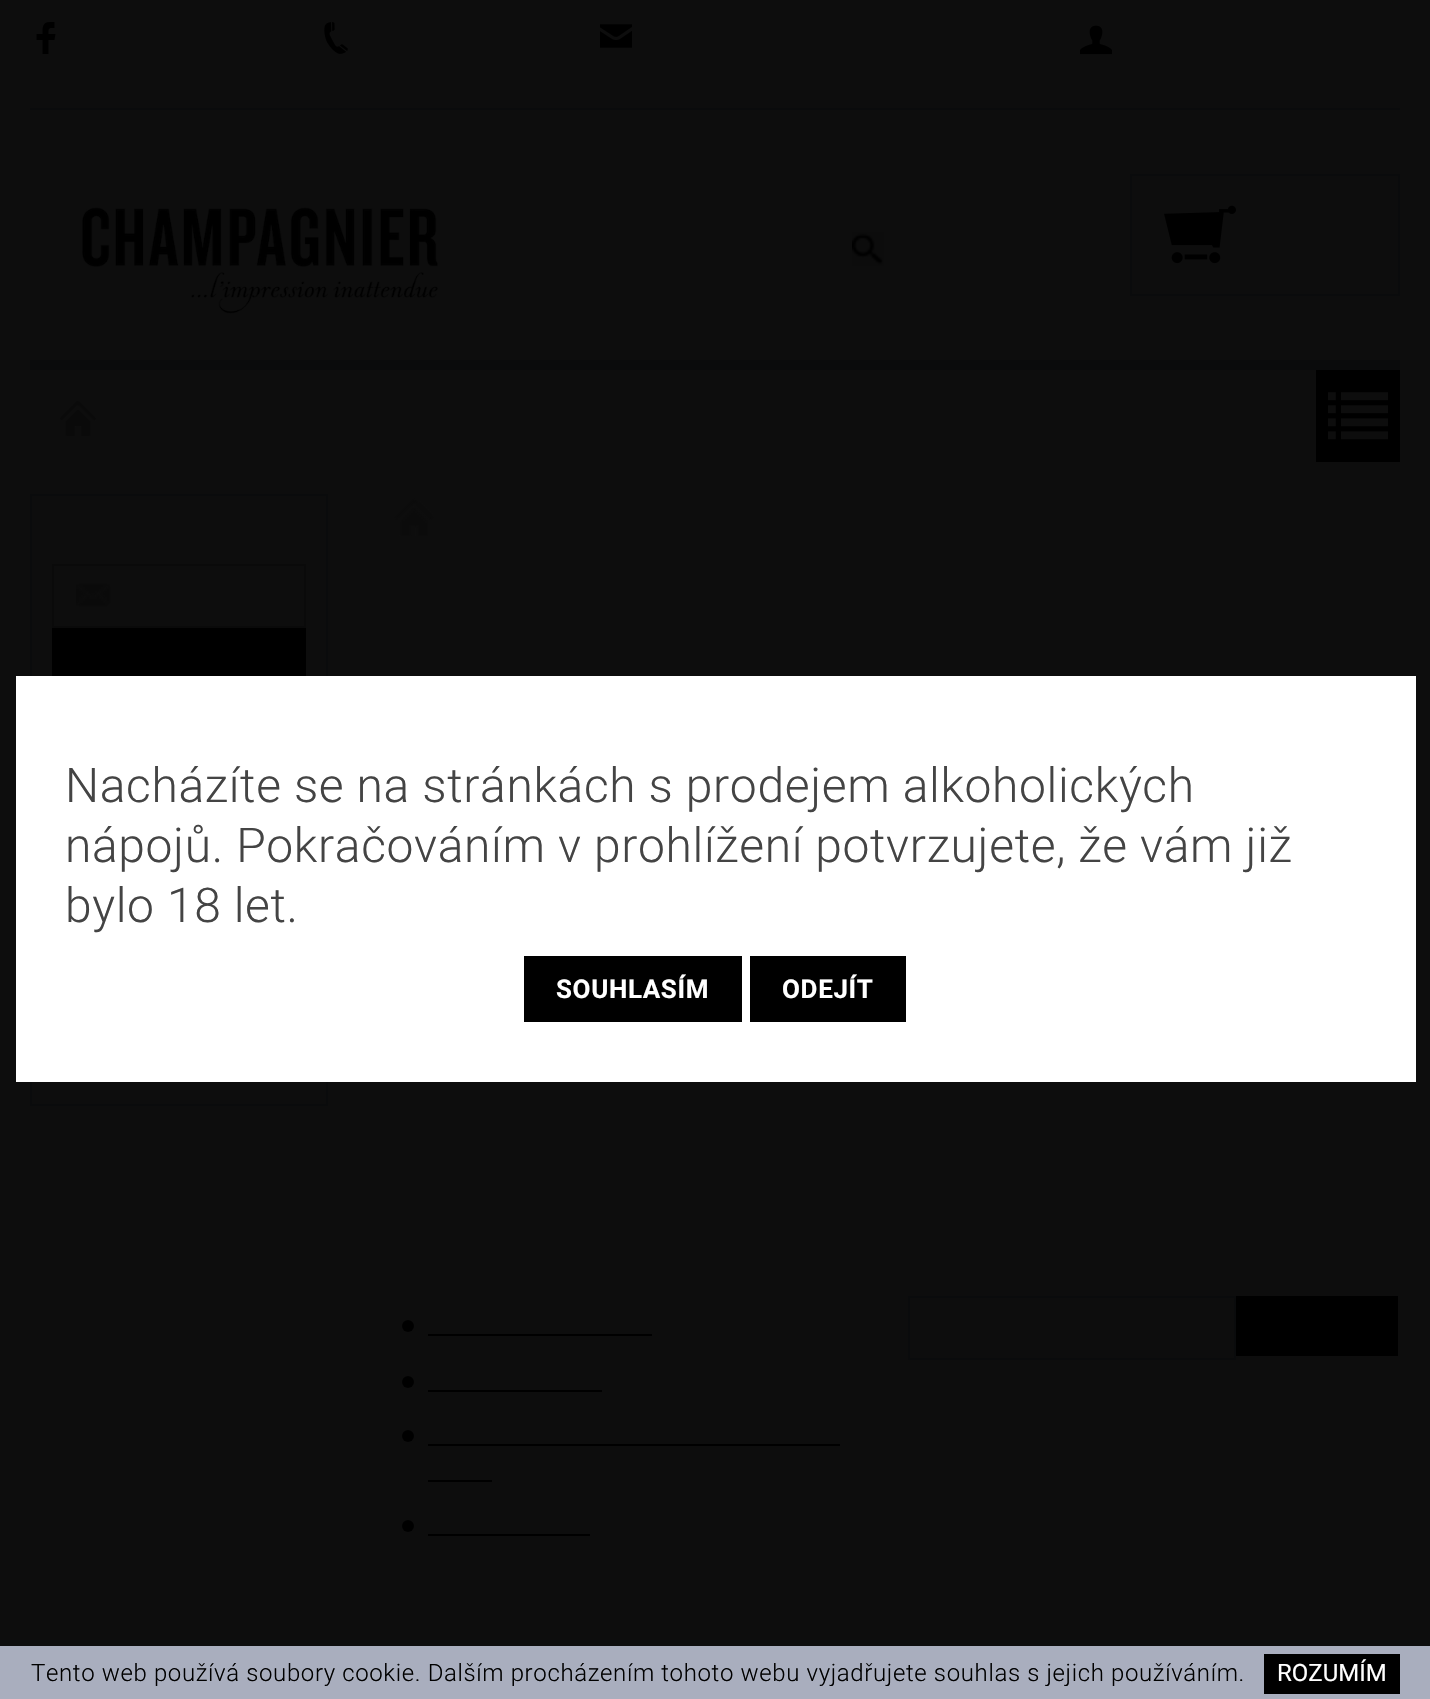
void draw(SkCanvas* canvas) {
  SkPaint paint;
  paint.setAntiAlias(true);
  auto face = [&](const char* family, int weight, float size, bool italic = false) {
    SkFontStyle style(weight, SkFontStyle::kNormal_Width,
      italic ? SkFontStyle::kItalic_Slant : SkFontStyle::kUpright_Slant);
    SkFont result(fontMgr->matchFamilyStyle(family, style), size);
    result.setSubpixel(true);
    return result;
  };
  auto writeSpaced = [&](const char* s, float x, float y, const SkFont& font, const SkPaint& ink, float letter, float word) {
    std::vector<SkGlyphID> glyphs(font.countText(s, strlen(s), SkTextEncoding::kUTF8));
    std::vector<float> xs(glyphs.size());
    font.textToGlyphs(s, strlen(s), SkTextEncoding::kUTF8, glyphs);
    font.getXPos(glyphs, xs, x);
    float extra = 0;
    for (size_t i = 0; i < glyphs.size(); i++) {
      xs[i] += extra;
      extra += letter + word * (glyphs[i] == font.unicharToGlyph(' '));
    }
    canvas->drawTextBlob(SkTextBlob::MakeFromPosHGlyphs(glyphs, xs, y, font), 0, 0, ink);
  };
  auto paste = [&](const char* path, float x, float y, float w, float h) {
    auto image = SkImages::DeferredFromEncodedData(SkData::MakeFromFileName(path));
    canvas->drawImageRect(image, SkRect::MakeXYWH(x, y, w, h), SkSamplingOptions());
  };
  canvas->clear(0xff0d0d0d);
  paint.setColor(0xff0a0b0c);
  canvas->drawRect(SkRect::MakeXYWH(30, 108, 1370, 2), paint);
  paste("img/1.png", 36, 22, 20, 32);
  paste("img/2.png", 324, 22, 24, 32);
  paste("img/3.png", 600, 24, 32, 24);
  paste("img/4.png", 1080, 25, 32, 30);
  paste("img/5.png", 82, 206, 356, 108);
  paint.setColor(0xff000000);
  canvas->drawRect(SkRect::MakeXYWH(852, 233, 31, 32), paint);
  paste("img/6.png", 852, 232, 32, 34);
  paint.setStroke(true);
  paint.setStrokeWidth(2);
  paint.setColor(0xff0a0b0c);
  canvas->drawRect(SkRect::MakeXYWH(1131, 175, 268, 120), paint);
  paste("img/7.png", 1164, 205, 72, 59);
  paint.setStroke(false);
  canvas->drawRect(SkRect::MakeXYWH(30, 360, 1370, 10), paint);
  paste("img/8.png", 60, 400, 36, 36);
  paint.setColor(0xff000000);
  canvas->drawRect(SkRect::MakeXYWH(1316, 370, 84, 92), paint);
  paste("img/9.png", 1328, 392, 60, 48);
  paint.setStroke(true);
  paint.setColor(0xff0a0b0c);
  canvas->drawRect(SkRect::MakeXYWH(31, 495, 296, 218), paint);
  paste("img/10.png", 76, 583, 35, 24);
  paint.setColor(0xff0a0a0a);
  canvas->drawRect(SkRect::MakeXYWH(53, 565, 252, 62), paint);
  paint.setStroke(false);
  paint.setColor(0xff000000);
  canvas->drawRect(SkRect::MakeXYWH(52, 628, 254, 48), paint);
  paint.setStroke(true);
  paint.setColor(0xff0a0b0c);
  canvas->drawRect(SkRect::MakeXYWH(31, 1031, 296, 74), paint);
  paste("img/11.png", 394, 498, 40, 38);
  paint.setStroke(false);
  paint.setColor(0xff000000);
  canvas->drawCircle(408, 1326, 6, paint);
  canvas->drawRect(SkRect::MakeXYWH(428, 1334, 224, 2), paint);
  canvas->drawCircle(408, 1382, 6, paint);
  canvas->drawRect(SkRect::MakeXYWH(428, 1390, 174, 2), paint);
  canvas->drawCircle(408, 1436, 6, paint);
  canvas->drawRect(SkRect::MakeXYWH(428, 1444, 412, 2), paint);
  canvas->drawRect(SkRect::MakeXYWH(428, 1480, 64, 2), paint);
  canvas->drawCircle(408, 1526, 6, paint);
  canvas->drawRect(SkRect::MakeXYWH(428, 1534, 162, 2), paint);
  paint.setStroke(true);
  paint.setColor(0xff0a0b0c);
  canvas->drawRect(SkRect::MakeXYWH(909, 1297, 326, 62), paint);
  paint.setStroke(false);
  {
    const struct { float x, y, w, h; SkColor color; } items[] = {
      {1236, 1296, 162, 60, 0xff000000},
      {16, 676, 1400, 406, 0xffffffff},
      {524, 956, 218, 66, 0xff000000},
      {750, 956, 156, 66, 0xff000000},
      {0, 1646, 1430, 53, 0xffa9aebe},
      {1264, 1654, 136, 40, 0xff000000},
    };
    for (auto [x, y, w, h, color] : items) {
      paint.setColor(color);
      canvas->drawRect(SkRect::MakeXYWH(x, y, w, h), paint);
    }
  }
  auto f0 = face("Roboto", 300, 48);
  paint.setColor(0xff444444);
  {
    const struct { const char* s; float x, y; } items[] = {
      {"Nacházíte se na stránkách s prodejem alkoholických", 65, 802},
      {"nápojů. Pokračováním v prohlížení potvrzujete, že vám již", 65, 862},
      {"bylo 18 let.", 65, 922},
    };
    for (auto [s, x, y] : items) {
      writeSpaced(s, x, y, f0, paint, 0.64f, 0);
    }
  }
  auto f1 = face("Roboto", 700, 26);
  paint.setColor(0xffffffff);
  writeSpaced("SOUHLASÍM", 556, 998, f1, paint, 0.64f, 0);
  writeSpaced("ODEJÍT", 782, 998, f1, paint, 0.64f, 0);
  auto f2 = face("Roboto", 300, 24);
  paint.setColor(0xff000000);
  writeSpaced("Tento web používá soubory cookie. Dalším procházením tohoto webu vyjadřujete souhlas s jejich používáním.", 31, 1681, f2, paint, 0.64f, 0);
  auto f3 = face("Roboto", 400, 24);
  paint.setColor(0xffffffff);
  canvas->drawString("ROZUMÍM", 1277, 1681, f3, paint);
}
